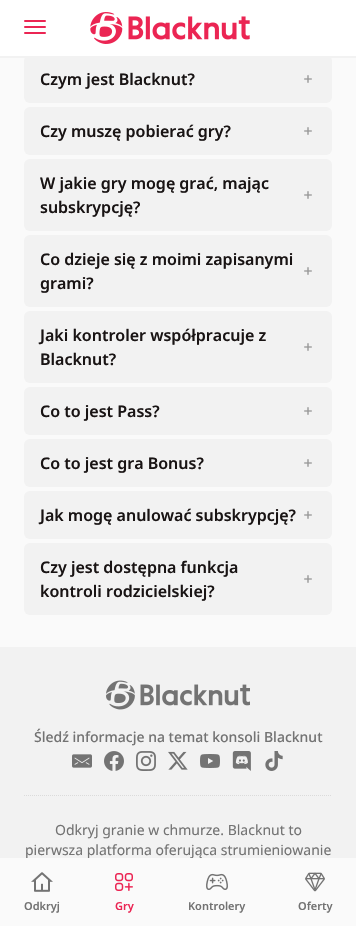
void draw(SkCanvas* canvas) {
  SkPaint paint;
  paint.setAntiAlias(true);
  auto face = [&](const char* family, int weight, float size, bool italic = false) {
    SkFontStyle style(weight, SkFontStyle::kNormal_Width,
      italic ? SkFontStyle::kItalic_Slant : SkFontStyle::kUpright_Slant);
    SkFont result(fontMgr->matchFamilyStyle(family, style), size);
    result.setSubpixel(true);
    return result;
  };
  auto paste = [&](const char* path, float x, float y, float w, float h) {
    auto image = SkImages::DeferredFromEncodedData(SkData::MakeFromFileName(path));
    canvas->drawImageRect(image, SkRect::MakeXYWH(x, y, w, h), SkSamplingOptions());
  };
  auto shape = [&](const char* data, bool evenOdd = false) {
    SkPath result = *SkParsePath::FromSVGString(data);
    if (evenOdd) result.setFillType(SkPathFillType::kEvenOdd);
    return result;
  };
  canvas->clear(0xfffafafa);
  paint.setColor(0xfff2f2f2);
  canvas->drawRoundRect(SkRect::MakeXYWH(24, 55, 308, 48), 6, 6, paint);
  paint.setColor(0xffffffff);
  canvas->drawRect(SkRect::MakeXYWH(0, 0, 356, 56), paint);
  paint.setColor(0xfff2f2f2);
  canvas->drawRect(SkRect::MakeXYWH(0, 56, 356, 2), paint);
  paint.setColor(0xffeb2553);
  canvas->drawRoundRect(SkRect::MakeXYWH(24, 20, 22, 2), 1, 1, paint);
  canvas->drawRoundRect(SkRect::MakeXYWH(24, 26, 22, 2), 1, 1, paint);
  canvas->drawRoundRect(SkRect::MakeXYWH(24, 32, 22, 2), 1, 1, paint);
  paste("img/1.png", 90, 12, 160, 32);
  paste("img/2.png", 304, 75, 8, 8);
  paint.setColor(0xfff2f2f2);
  canvas->drawRoundRect(SkRect::MakeXYWH(24, 107, 308, 48), 6, 6, paint);
  paste("img/2.png", 304, 127, 8, 8);
  canvas->drawRoundRect(SkRect::MakeXYWH(24, 159, 308, 72), 6, 6, paint);
  paste("img/2.png", 304, 191, 8, 8);
  canvas->drawRoundRect(SkRect::MakeXYWH(24, 235, 308, 72), 6, 6, paint);
  paste("img/2.png", 304, 267, 8, 8);
  canvas->drawRoundRect(SkRect::MakeXYWH(24, 311, 308, 72), 6, 6, paint);
  paste("img/2.png", 304, 343, 8, 8);
  canvas->drawRoundRect(SkRect::MakeXYWH(24, 387, 308, 48), 6, 6, paint);
  paste("img/2.png", 304, 407, 8, 8);
  canvas->drawRoundRect(SkRect::MakeXYWH(24, 439, 308, 48), 6, 6, paint);
  paste("img/2.png", 304, 459, 8, 8);
  canvas->drawRoundRect(SkRect::MakeXYWH(24, 491, 308, 48), 6, 6, paint);
  paste("img/2.png", 304, 511, 8, 8);
  canvas->drawRoundRect(SkRect::MakeXYWH(24, 543, 308, 72), 6, 6, paint);
  paste("img/2.png", 304, 575, 8, 8);
  canvas->drawRect(SkRect::MakeXYWH(0, 647, 356, 211), paint);
  paste("img/3.png", 106, 680, 144, 30);
  paste("img/4.png", 72, 754, 20, 14);
  paste("img/5.png", 104, 751, 20, 20);
  paste("img/6.png", 136, 751, 20, 20);
  paste("img/7.png", 168, 751, 20, 19);
  paste("img/8.png", 200, 754, 20, 14);
  paste("img/9.png", 232, 751, 19, 20);
  paste("img/10.png", 265, 751, 18, 20);
  paint.setStroke(true);
  paint.setStrokeWidth(1);
  paint.setColor(0xffdbdbdb);
  paint.setPathEffect(SkDashPathEffect::Make({{1, 1}}, 0));
  canvas->drawPath(shape("M24 795.5H332"), paint);
  paint.setPathEffect(nullptr);
  paste("img/11.png", 31, 872, 22, 20);
  paste("img/12.png", 115, 873, 18, 18);
  paste("img/13.png", 206, 873, 22, 17);
  paste("img/14.png", 305, 872, 20, 20);
  auto f0 = face("Noto Sans", 600, 16);
  paint.setStroke(false);
  paint.setColor(0xff191414);
  {
    const struct { const char* s; float x, y; } items[] = {
      {"Czym jest Blacknut?", 40, 85},
      {"Czy muszę pobierać gry?", 40, 137},
      {"W jakie gry mogę grać, mając", 40, 189},
      {"subskrypcję?", 40, 213},
      {"Co dzieje się z moimi zapisanymi", 40, 265},
      {"grami?", 40, 289},
      {"Jaki kontroler współpracuje z", 40, 341},
      {"Blacknut?", 40, 365},
      {"Co to jest Pass?", 40, 417},
      {"Co to jest gra Bonus?", 40, 469},
      {"Jak mogę anulować subskrypcję?", 40, 521},
      {"Czy jest dostępna funkcja", 40, 573},
      {"kontroli rodzicielskiej?", 40, 597},
    };
    for (auto [s, x, y] : items) {
      canvas->drawString(s, x, y, f0, paint);
    }
  }
  auto f1 = face("Noto Sans", 500, 14);
  paint.setColor(0xff737373);
  canvas->drawString("Śledź informacje na temat konsoli Blacknut", 34, 742, f1, paint);
  auto f2 = face("Noto Sans", 400, 14);
  canvas->drawString("Odkryj granie w chmurze. Blacknut to", 55, 835, f2, paint);
  canvas->drawString("pierwsza platforma oferująca strumieniowanie", 25, 855, f2, paint);
  paint.setColor(0xfffafafa);
  canvas->drawRect(SkRect::MakeXYWH(26, 858, 176, 1), paint);
  auto f3 = face("Noto Sans", 600, 11);
  paint.setColor(0xff737373);
  canvas->drawString("Odkryj", 24, 910, f3, paint);
  paint.setColor(0xffeb2553);
  canvas->drawString("Gry", 115, 910, f3, paint);
  paint.setColor(0xff737373);
  canvas->drawString("Kontrolery", 188, 910, f3, paint);
  canvas->drawString("Oferty", 298, 910, f3, paint);
}
